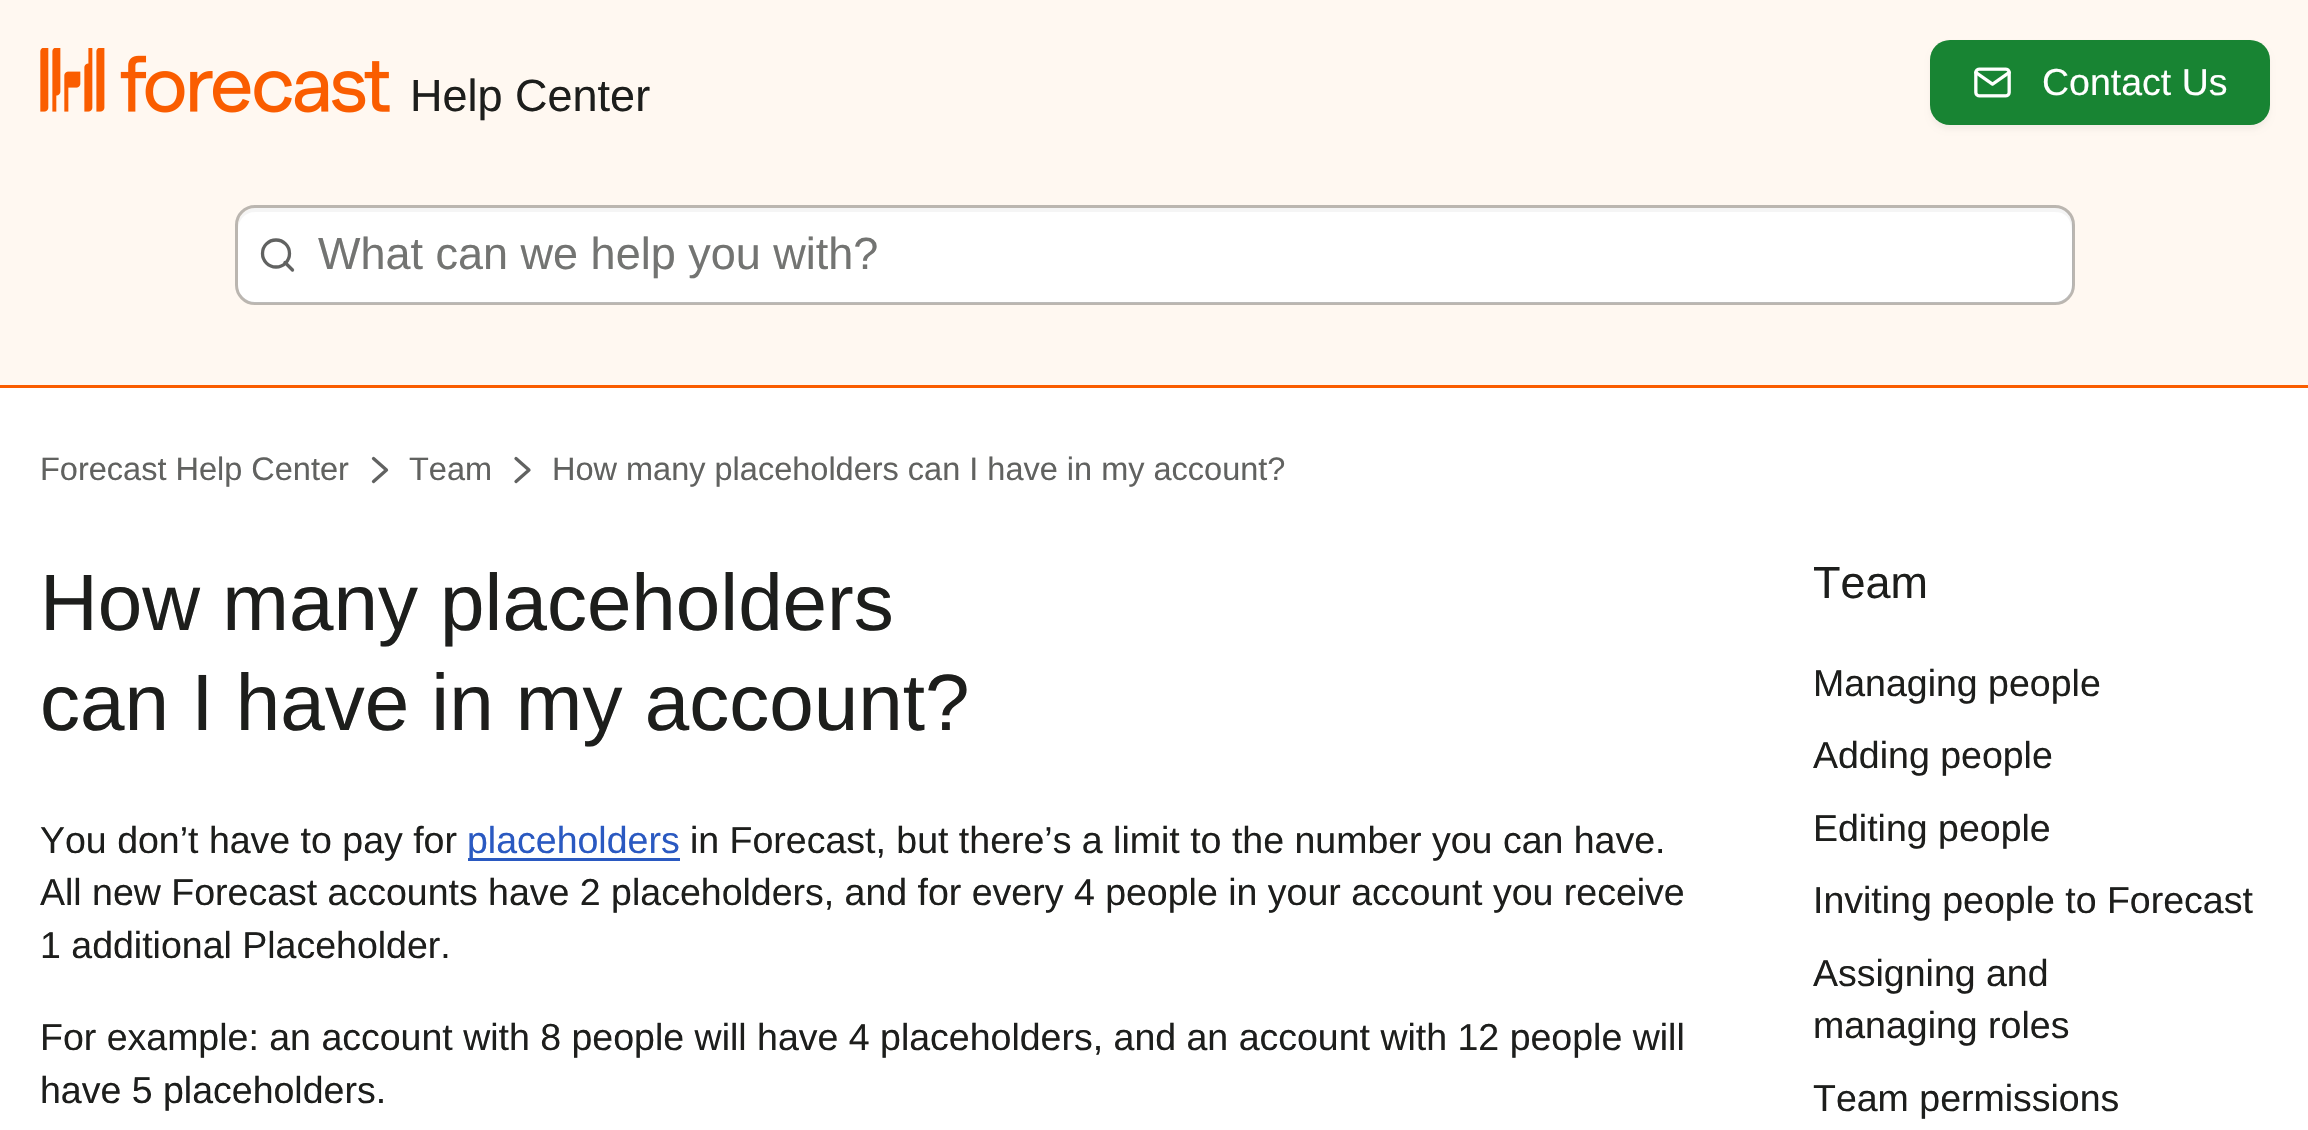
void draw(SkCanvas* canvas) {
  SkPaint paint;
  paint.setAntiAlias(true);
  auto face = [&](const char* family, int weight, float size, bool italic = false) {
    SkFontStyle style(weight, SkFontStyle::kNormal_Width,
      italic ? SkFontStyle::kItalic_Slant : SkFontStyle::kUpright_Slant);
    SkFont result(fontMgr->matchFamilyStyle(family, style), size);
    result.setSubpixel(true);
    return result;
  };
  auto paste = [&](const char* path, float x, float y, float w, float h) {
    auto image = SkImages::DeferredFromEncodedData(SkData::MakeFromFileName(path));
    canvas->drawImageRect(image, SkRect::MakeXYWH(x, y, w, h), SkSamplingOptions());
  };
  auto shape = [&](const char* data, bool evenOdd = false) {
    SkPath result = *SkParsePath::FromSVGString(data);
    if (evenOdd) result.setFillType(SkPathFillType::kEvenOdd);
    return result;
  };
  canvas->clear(0xffffffff);
  paint.setColor(0xfffff8f1);
  canvas->drawRect(SkRect::MakeXYWH(0, 0, 2308, 385), paint);
  paste("img/1.png", 40, 48, 350, 65);
  paint.setColor(0x0a000000);
  paint.setMaskFilter(SkMaskFilter::MakeBlur(kNormal_SkBlurStyle, 2.5f));
  canvas->drawRoundRect(SkRect::MakeXYWH(1930, 45, 340, 85), 20, 20, paint);
  paint.setMaskFilter(nullptr);
  paint.setColor(0xff188433);
  canvas->drawRoundRect(SkRect::MakeXYWH(1930, 40, 340, 85), 20, 20, paint);
  paste("img/2.png", 1974, 67, 37, 31);
  paint.setColor(0xffffffff);
  canvas->drawRoundRect(SkRect::MakeXYWH(238, 208, 1835, 95), 18, 18, paint);
  paint.setStroke(true);
  paint.setStrokeWidth(3.3f);
  paint.setColor(0xff616261);
  canvas->drawCircle(276, 253.5f, 13.5f, paint);
  paint.setStrokeCap(SkPaint::kRound_Cap);
  paint.setStrokeJoin(SkPaint::kRound_Join);
  canvas->drawPath(shape("M292.5 270L285 262.5"), paint);
  paint.setStroke(false);
  paint.setColor(0x0a000000);
  canvas->drawPath(shape("M255 212H2055C2076 212 2072 237 2072 250V291C2073 289 2073 287 2073 285V226C2073 216 2065 208 2055 208H256C246 208 238 216 238 226V230C238 220 245 212 255 212Z"), paint);
  paint.setStroke(true);
  paint.setStrokeWidth(3);
  paint.setStrokeCap(SkPaint::kButt_Cap);
  paint.setStrokeJoin(SkPaint::kMiter_Join);
  paint.setColor(0x4d1d1e1c);
  canvas->drawRoundRect(SkRect::MakeXYWH(236.5f, 206.5f, 1837, 97), 18.5f, 18.5f, paint);
  paint.setStroke(false);
  paint.setColor(0xfffa5d00);
  canvas->drawRect(SkRect::MakeXYWH(0, 385, 2308, 3), paint);
  paint.setStroke(true);
  paint.setStrokeWidth(3.3f);
  paint.setStrokeCap(SkPaint::kRound_Cap);
  paint.setStrokeJoin(SkPaint::kRound_Join);
  paint.setColor(0xff616261);
  canvas->drawPath(shape("M373.5 481.5L386.5 470L373.5 458.5"), paint);
  canvas->drawPath(shape("M516 481.5L529 470L516 458.5"), paint);
  paint.setStroke(false);
  paint.setColor(0xff2a59c1);
  canvas->drawRect(SkRect::MakeXYWH(468, 858, 212, 3), paint);
  auto f0 = face("Liberation Sans", 400, 45);
  paint.setColor(0xff1d1e1c);
  canvas->drawString("Help Center", 410, 111, f0, paint);
  auto f1 = face("Liberation Sans", 400, 37.5f);
  paint.setColor(0xffffffff);
  canvas->drawString("Contact Us", 2042, 95, f1, paint);
  paint.setColor(0xff737472);
  canvas->drawString("What can we help you with?", 318, 269, f0, paint);
  auto f2 = face("Liberation Sans", 400, 32.5f);
  paint.setColor(0xff616260);
  {
    const struct { const char* s; float x, y; } items[] = {
      {"Forecast Help Center", 40, 480},
      {"Team", 409, 480},
      {"How many placeholders can I have in my account?", 552, 480},
    };
    for (auto [s, x, y] : items) {
      canvas->drawString(s, x, y, f2, paint);
    }
  }
  auto f3 = face("Liberation Sans", 400, 80);
  paint.setColor(0xff1d1e1c);
  canvas->drawString("How many placeholders", 40, 630, f3, paint);
  canvas->drawString("can I have in my account?", 40, 730, f3, paint);
  canvas->drawString("You don’t have to pay for", 40, 853, f1, paint);
  paint.setColor(0xff2a59c1);
  canvas->drawString("placeholders", 467, 853, f1, paint);
  paint.setColor(0xff1d1e1c);
  {
    const struct { const char* s; float x, y; } items[] = {
      {"in Forecast, but there’s a limit to the number you can have.", 690, 853},
      {"All new Forecast accounts have 2 placeholders, and for every 4 people in your account you receive", 40, 905},
      {"1 additional Placeholder.", 40, 958},
      {"For example: an account with 8 people will have 4 placeholders, and an account with 12 people will", 40, 1050},
      {"have 5 placeholders.", 40, 1103},
    };
    for (auto [s, x, y] : items) {
      canvas->drawString(s, x, y, f1, paint);
    }
  }
  canvas->drawString("Team", 1813, 598, f0, paint);
  {
    const struct { const char* s; float x, y; } items[] = {
      {"Managing people", 1813, 696},
      {"Adding people", 1813, 768},
      {"Editing people", 1813, 841},
      {"Inviting people to Forecast", 1813, 913},
      {"Assigning and", 1813, 986},
      {"managing roles", 1813, 1038},
      {"Team permissions", 1813, 1111},
    };
    for (auto [s, x, y] : items) {
      canvas->drawString(s, x, y, f1, paint);
    }
  }
}
